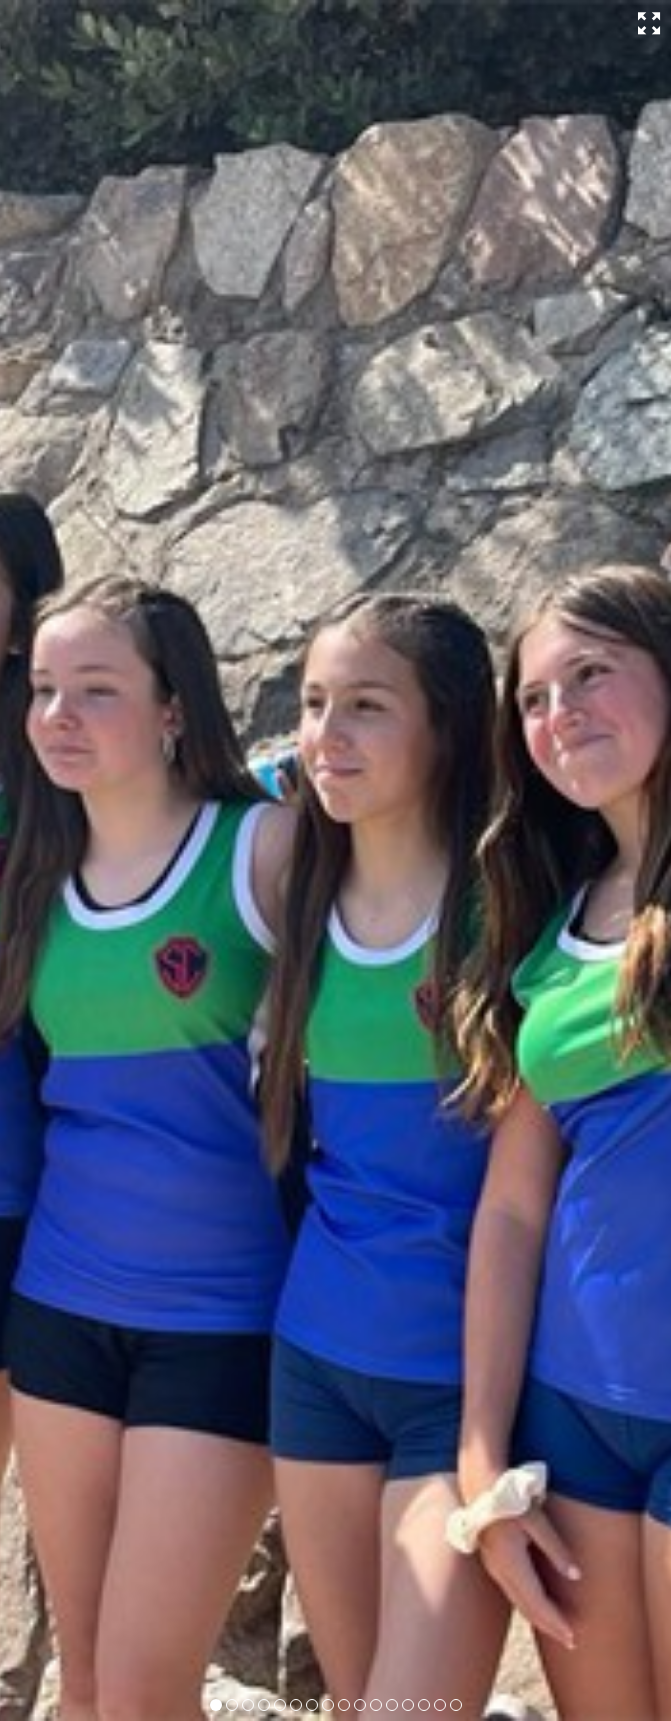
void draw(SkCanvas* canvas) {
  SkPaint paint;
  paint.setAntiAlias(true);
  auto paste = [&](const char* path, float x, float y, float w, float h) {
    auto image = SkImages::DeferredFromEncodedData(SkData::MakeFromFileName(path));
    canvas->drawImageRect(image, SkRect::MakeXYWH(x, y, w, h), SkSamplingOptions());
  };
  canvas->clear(0xffffffff);
  paste("img/1.png", 0, 0, 671, 1721);
  paste("img/2.png", 638, 12, 23, 23);
  paint.setColor(0xffffffff);
  canvas->drawCircle(216, 1705, 6, paint);
  paint.setStroke(true);
  paint.setStrokeWidth(1);
  canvas->drawCircle(232, 1705, 5.5f, paint);
  canvas->drawCircle(248, 1705, 5.5f, paint);
  canvas->drawCircle(264, 1705, 5.5f, paint);
  canvas->drawCircle(280, 1705, 5.5f, paint);
  canvas->drawCircle(296, 1705, 5.5f, paint);
  canvas->drawCircle(312, 1705, 5.5f, paint);
  canvas->drawCircle(328, 1705, 5.5f, paint);
  canvas->drawCircle(344, 1705, 5.5f, paint);
  canvas->drawCircle(360, 1705, 5.5f, paint);
  canvas->drawCircle(376, 1705, 5.5f, paint);
  canvas->drawCircle(392, 1705, 5.5f, paint);
  canvas->drawCircle(408, 1705, 5.5f, paint);
  canvas->drawCircle(424, 1705, 5.5f, paint);
  canvas->drawCircle(440, 1705, 5.5f, paint);
  canvas->drawCircle(456, 1705, 5.5f, paint);
}
